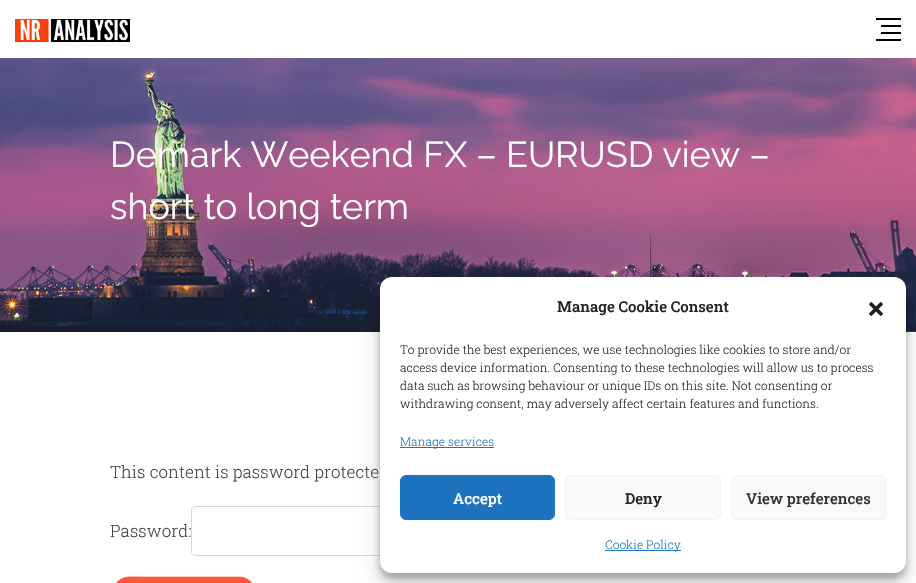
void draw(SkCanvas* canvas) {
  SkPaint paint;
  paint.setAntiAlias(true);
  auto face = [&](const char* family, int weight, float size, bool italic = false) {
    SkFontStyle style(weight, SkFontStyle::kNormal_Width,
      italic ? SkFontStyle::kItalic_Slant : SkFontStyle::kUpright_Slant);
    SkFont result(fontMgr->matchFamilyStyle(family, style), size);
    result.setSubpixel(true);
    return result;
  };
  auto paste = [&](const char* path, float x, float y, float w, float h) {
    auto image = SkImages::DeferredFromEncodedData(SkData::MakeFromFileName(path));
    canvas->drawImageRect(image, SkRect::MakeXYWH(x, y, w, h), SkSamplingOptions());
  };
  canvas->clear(0xffffffff);
  paste("img/1.png", 15, 19, 115, 23);
  {
    const struct { float x, y, w, h; SkColor color; } items[] = {
      {876, 18, 25, 2, 0xff000000},
      {881, 25, 20, 2, 0xff000000},
      {881, 32, 20, 2, 0xff000000},
      {876, 39, 25, 2, 0xff000000},
    };
    for (auto [x, y, w, h, color] : items) {
      paint.setColor(color);
      canvas->drawRect(SkRect::MakeXYWH(x, y, w, h), paint);
    }
  }
  paste("img/2.png", 0, 58, 916, 274);
  paint.setStroke(true);
  paint.setStrokeWidth(1);
  paint.setColor(0xffd7d7d7);
  canvas->drawRoundRect(SkRect::MakeXYWH(191.5f, 506.5f, 237, 49), 3.5f, 3.5f, paint);
  paste("img/3.png", 115, 576, 138, 7);
  paint.setStroke(false);
  paint.setColor(0x3b000000);
  paint.setMaskFilter(SkMaskFilter::MakeBlur(kNormal_SkBlurStyle, 3));
  canvas->drawRoundRect(SkRect::MakeXYWH(380, 283, 526, 296), 12, 12, paint);
  paint.setMaskFilter(nullptr);
  paint.setColor(0x30000000);
  paint.setMaskFilter(SkMaskFilter::MakeBlur(kNormal_SkBlurStyle, 10));
  canvas->drawRoundRect(SkRect::MakeXYWH(380, 287, 526, 296), 12, 12, paint);
  paint.setMaskFilter(nullptr);
  paint.setColor(0xffffffff);
  canvas->drawRoundRect(SkRect::MakeXYWH(380, 277, 526, 296), 12, 12, paint);
  paste("img/4.png", 869, 302, 14, 14);
  paint.setColor(0xff1e73be);
  canvas->drawRect(SkRect::MakeXYWH(400, 447, 94, 1), paint);
  canvas->drawRoundRect(SkRect::MakeXYWH(400.5f, 475.5f, 154, 44), 5.5f, 5.5f, paint);
  paint.setStroke(true);
  canvas->drawRoundRect(SkRect::MakeXYWH(400.5f, 475.5f, 154, 44), 5.5f, 5.5f, paint);
  paint.setStroke(false);
  paint.setColor(0xfff9f9f9);
  canvas->drawRoundRect(SkRect::MakeXYWH(565.5f, 475.5f, 155, 44), 5.5f, 5.5f, paint);
  paint.setStroke(true);
  paint.setColor(0xfff2f2f2);
  canvas->drawRoundRect(SkRect::MakeXYWH(565.5f, 475.5f, 155, 44), 5.5f, 5.5f, paint);
  paint.setStroke(false);
  paint.setColor(0xfff9f9f9);
  canvas->drawRoundRect(SkRect::MakeXYWH(731.5f, 475.5f, 154, 44), 5.5f, 5.5f, paint);
  paint.setStroke(true);
  paint.setColor(0xfff2f2f2);
  canvas->drawRoundRect(SkRect::MakeXYWH(731.5f, 475.5f, 154, 44), 5.5f, 5.5f, paint);
  paint.setStroke(false);
  paint.setColor(0xff1e73be);
  canvas->drawRect(SkRect::MakeXYWH(605, 550, 76, 1), paint);
  auto f0 = face("Raleway", 400, 36);
  paint.setColor(0xffffffff);
  canvas->drawString("Demark Weekend FX – EURUSD view –", 110, 167, f0, paint);
  canvas->drawString("short to long term", 110, 219, f0, paint);
  auto f1 = face("Roboto Slab", 300, 17);
  paint.setColor(0xff444444);
  canvas->drawString("This content is password protecte", 110, 478, f1, paint);
  canvas->drawString("Password:", 110, 537, f1, paint);
  auto f2 = face("Roboto Slab", 500, 15);
  paint.setColor(0xff222222);
  canvas->drawString("Manage Cookie Consent", 557, 312, f2, paint);
  auto f3 = face("Roboto Slab", 300, 12);
  {
    const struct { const char* s; float x, y; } items[] = {
      {"To provide the best experiences, we use technologies like cookies to store and/or", 400, 354},
      {"access device information. Consenting to these technologies will allow us to process", 400, 372},
      {"data such as browsing behaviour or unique IDs on this site. Not consenting or", 400, 390},
      {"withdrawing consent, may adversely affect certain features and functions.", 400, 408},
    };
    for (auto [s, x, y] : items) {
      canvas->drawString(s, x, y, f3, paint);
    }
  }
  paint.setColor(0xff1e73be);
  canvas->drawString("Manage services", 400, 446, f3, paint);
  paint.setColor(0xffffffff);
  canvas->drawString("Accept", 453, 504, f2, paint);
  paint.setColor(0xff222222);
  canvas->drawString("Deny", 625, 504, f2, paint);
  paint.setColor(0xff333333);
  canvas->drawString("View preferences", 746, 504, f2, paint);
  paint.setColor(0xff1e73be);
  canvas->drawString("Cookie Policy", 605, 549, f3, paint);
}
